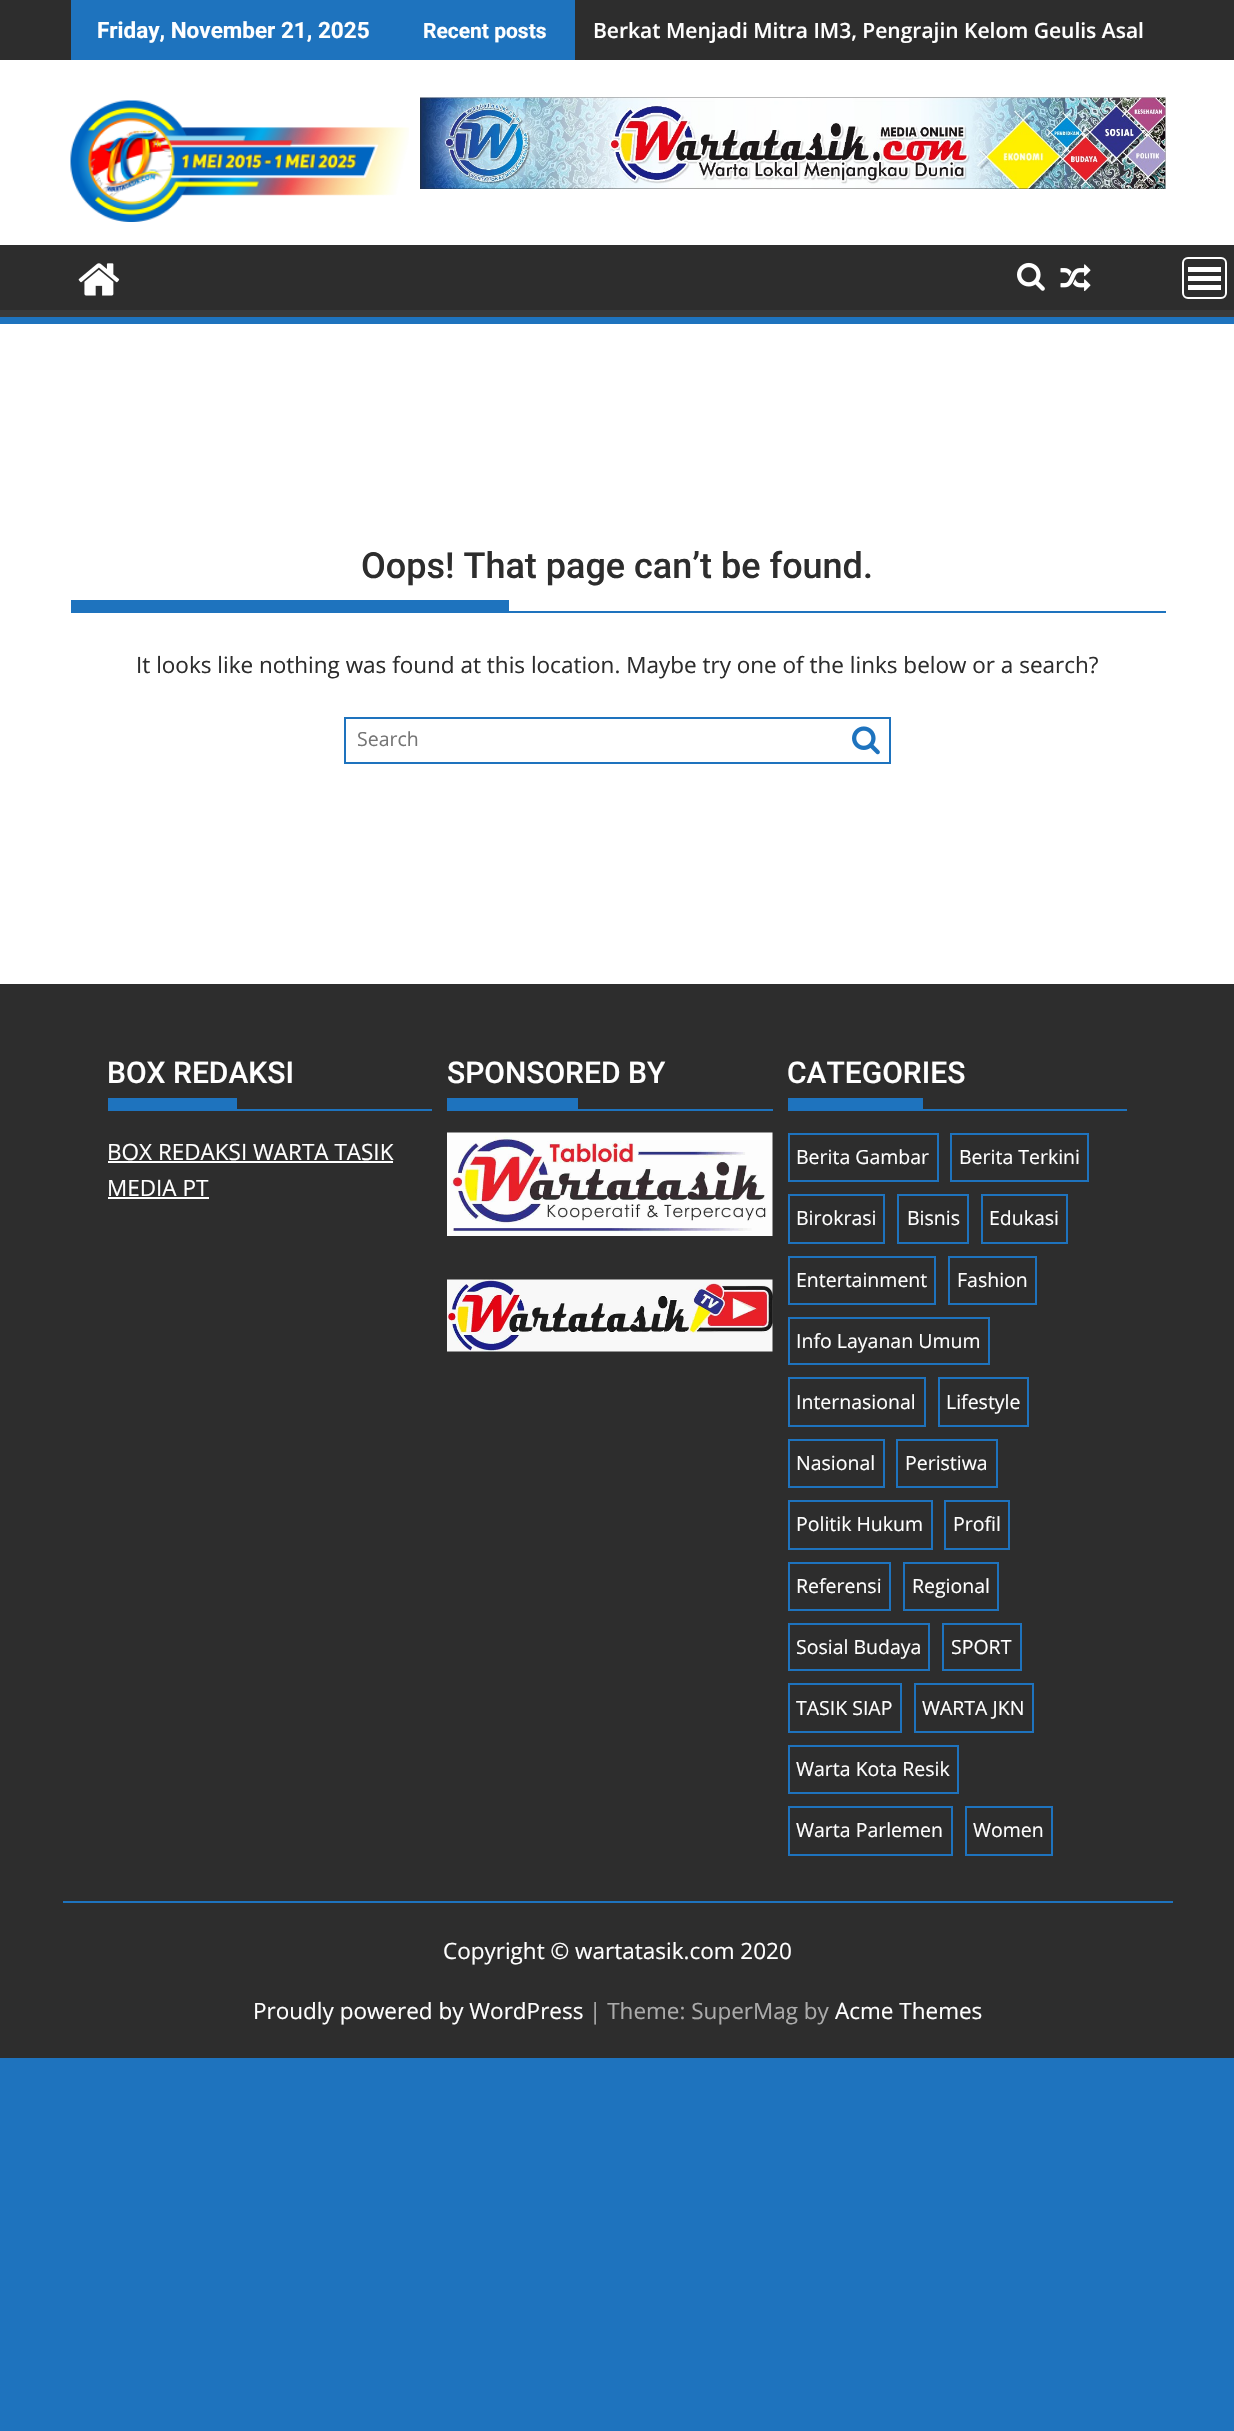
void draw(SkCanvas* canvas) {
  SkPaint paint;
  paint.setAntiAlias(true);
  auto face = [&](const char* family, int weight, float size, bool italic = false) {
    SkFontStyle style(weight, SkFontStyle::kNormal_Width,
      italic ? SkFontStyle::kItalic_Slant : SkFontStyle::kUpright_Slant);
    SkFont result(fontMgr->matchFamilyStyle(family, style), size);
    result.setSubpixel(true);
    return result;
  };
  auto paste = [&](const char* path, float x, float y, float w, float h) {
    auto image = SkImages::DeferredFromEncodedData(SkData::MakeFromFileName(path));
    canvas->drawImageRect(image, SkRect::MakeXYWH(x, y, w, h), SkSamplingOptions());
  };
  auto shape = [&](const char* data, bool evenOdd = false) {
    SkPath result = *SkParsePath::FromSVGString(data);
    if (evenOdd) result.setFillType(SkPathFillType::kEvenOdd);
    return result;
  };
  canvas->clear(0xff1e73be);
  {
    const struct { float x, y, w, h; SkColor color; } items[] = {
      {0, 60, 1234, 924, 0xffffffff},
      {0, 0, 1234, 60, 0xff2d2d2d},
      {71, 0, 504, 60, 0xff1e73be},
    };
    for (auto [x, y, w, h, color] : items) {
      paint.setColor(color);
      canvas->drawRect(SkRect::MakeXYWH(x, y, w, h), paint);
    }
  }
  paste("img/1.png", 70, 100, 339, 122);
  paste("img/2.png", 420, 97, 746, 92);
  paint.setColor(0xff2d2d2d);
  canvas->drawRect(SkRect::MakeXYWH(0, 245, 1234, 65), paint);
  canvas->save();
  canvas->clipRect(SkRect::MakeXYWH(0, 245, 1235, 72));
  paint.setColor(0xff393939);
  canvas->drawPath(shape("M-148 96H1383V465H-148ZM-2 236H1233C1234 236 1234 236 1234 237V309C1234 310 1234 310 1233 310H-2C-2 310-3 310-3 309V237C-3 236-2 236-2 236Z", true), paint);
  canvas->restore();
  paint.setColor(0xff1e73be);
  canvas->drawRect(SkRect::MakeXYWH(0, 317, 1234, 7), paint);
  paste("img/3.png", 78, 263, 42, 33);
  paste("img/4.png", 1017, 262, 28, 29);
  paste("img/5.png", 1060, 264, 31, 28);
  paint.setStroke(true);
  paint.setStrokeWidth(2);
  paint.setColor(0xffffffff);
  canvas->drawRoundRect(SkRect::MakeXYWH(1183, 258, 43, 40), 5, 5, paint);
  paint.setStroke(false);
  {
    const struct { float x, y, w, h; SkColor color; } items[] = {
      {1188, 285, 33, 5, 0xffffffff},
      {1188, 276, 33, 5, 0xffffffff},
      {1188, 267, 33, 5, 0xffffffff},
      {71, 611, 1095, 2, 0xff1e73be},
      {71, 600, 438, 11, 0xff1e73be},
    };
    for (auto [x, y, w, h, color] : items) {
      paint.setColor(color);
      canvas->drawRect(SkRect::MakeXYWH(x, y, w, h), paint);
    }
  }
  paint.setStroke(true);
  canvas->drawRect(SkRect::MakeXYWH(345, 718, 545, 45), paint);
  paste("img/6.png", 852, 726, 28, 29);
  paint.setStroke(false);
  {
    const struct { float x, y, w, h; SkColor color; } items[] = {
      {0, 984, 1234, 1074, 0xff2d2d2d},
      {108, 1109, 324, 2, 0xff1e73be},
      {108, 1098, 129, 11, 0xff1e73be},
      {108, 1161, 285, 2, 0xffffffff},
      {108, 1197, 101, 2, 0xffffffff},
      {447, 1109, 326, 2, 0xff1e73be},
      {447, 1098, 131, 11, 0xff1e73be},
    };
    for (auto [x, y, w, h, color] : items) {
      paint.setColor(color);
      canvas->drawRect(SkRect::MakeXYWH(x, y, w, h), paint);
    }
  }
  paste("img/7.png", 447, 1132, 326, 104);
  paste("img/8.png", 447, 1279, 326, 73);
  canvas->drawRect(SkRect::MakeXYWH(788, 1109, 339, 2), paint);
  canvas->drawRect(SkRect::MakeXYWH(788, 1098, 135, 11), paint);
  paint.setStroke(true);
  canvas->drawRect(SkRect::MakeXYWH(789, 1134, 149, 47), paint);
  canvas->drawRect(SkRect::MakeXYWH(951, 1134, 137, 47), paint);
  canvas->drawRect(SkRect::MakeXYWH(789, 1195, 95, 48), paint);
  canvas->drawRect(SkRect::MakeXYWH(898, 1195, 70, 48), paint);
  canvas->drawRect(SkRect::MakeXYWH(982, 1195, 85, 48), paint);
  canvas->drawRect(SkRect::MakeXYWH(789, 1257, 146, 47), paint);
  canvas->drawRect(SkRect::MakeXYWH(949, 1257, 87, 47), paint);
  canvas->drawRect(SkRect::MakeXYWH(789, 1318, 200, 46), paint);
  canvas->drawRect(SkRect::MakeXYWH(789, 1378, 136, 48), paint);
  canvas->drawRect(SkRect::MakeXYWH(939, 1378, 89, 48), paint);
  canvas->drawRect(SkRect::MakeXYWH(789, 1440, 95, 47), paint);
  canvas->drawRect(SkRect::MakeXYWH(897, 1440, 100, 47), paint);
  canvas->drawRect(SkRect::MakeXYWH(789, 1501, 143, 48), paint);
  canvas->drawRect(SkRect::MakeXYWH(945, 1501, 64, 48), paint);
  canvas->drawRect(SkRect::MakeXYWH(789, 1563, 101, 47), paint);
  canvas->drawRect(SkRect::MakeXYWH(904, 1563, 94, 47), paint);
  canvas->drawRect(SkRect::MakeXYWH(789, 1624, 140, 46), paint);
  canvas->drawRect(SkRect::MakeXYWH(943, 1624, 78, 46), paint);
  canvas->drawRect(SkRect::MakeXYWH(789, 1684, 112, 48), paint);
  canvas->drawRect(SkRect::MakeXYWH(915, 1684, 118, 48), paint);
  canvas->drawRect(SkRect::MakeXYWH(789, 1746, 169, 47), paint);
  canvas->drawRect(SkRect::MakeXYWH(789, 1807, 163, 48), paint);
  canvas->drawRect(SkRect::MakeXYWH(966, 1807, 86, 48), paint);
  paint.setStroke(false);
  canvas->drawRect(SkRect::MakeXYWH(63, 1901, 1110, 2), paint);
  auto f0 = face("Roboto", 700, 22.5f);
  paint.setColor(0xffffffff);
  canvas->drawString("Friday, November 21, 2025", 97, 38, f0, paint);
  auto f1 = face("Roboto", 700, 21);
  canvas->drawString("Recent posts", 423, 38, f1, paint);
  auto f2 = face("Open Sans", 600, 21);
  canvas->drawString("Berkat Menjadi Mitra IM3, Pengrajin Kelom Geulis Asal", 593, 38, f2, paint);
  auto f3 = face("Roboto", 500, 36);
  paint.setColor(0xff2d2d2d);
  canvas->drawString("Oops! That page can’t be found.", 361, 578, f3, paint);
  auto f4 = face("Open Sans", 400, 22.5f);
  canvas->drawString("It looks like nothing was found at this location. Maybe try one of the links below or a search?", 136, 673, f4, paint);
  auto f5 = face("Open Sans", 400, 19.5f);
  paint.setColor(0xff757575);
  canvas->drawString("Search", 357, 746, f5, paint);
  auto f6 = face("Roboto", 500, 30);
  paint.setColor(0xffffffff);
  canvas->drawString("BOX REDAKSI", 107, 1083, f6, paint);
  canvas->drawString("BOX REDAKSI WARTA TASIK", 107, 1160, f4, paint);
  canvas->drawString("MEDIA PT", 107, 1196, f4, paint);
  canvas->drawString("SPONSORED BY", 447, 1083, f6, paint);
  canvas->drawString("CATEGORIES", 787, 1083, f6, paint);
  {
    const struct { const char* s; float x, y; } items[] = {
      {"Berita Gambar", 796, 1164},
      {"Berita Terkini", 959, 1164},
      {"Birokrasi", 796, 1225},
      {"Bisnis", 907, 1225},
      {"Edukasi", 989, 1225},
      {"Entertainment", 796, 1287},
      {"Fashion", 957, 1287},
      {"Info Layanan Umum", 796, 1348},
      {"Internasional", 796, 1409},
      {"Lifestyle", 946, 1409},
      {"Nasional", 796, 1470},
      {"Peristiwa", 905, 1470},
      {"Politik Hukum", 796, 1531},
      {"Profil", 953, 1531},
      {"Referensi", 796, 1593},
      {"Regional", 912, 1593},
      {"Sosial Budaya", 796, 1654},
      {"SPORT", 951, 1654},
      {"TASIK SIAP", 796, 1715},
      {"WARTA JKN", 922, 1715},
      {"Warta Kota Resik", 796, 1776},
      {"Warta Parlemen", 796, 1837},
      {"Women", 973, 1837},
    };
    for (auto [s, x, y] : items) {
      canvas->drawString(s, x, y, f5, paint);
    }
  }
  canvas->drawString("Copyright © wartatasik.com 2020", 443, 1959, f4, paint);
  canvas->drawString("Proudly powered by WordPress", 253, 2019, f4, paint);
  paint.setColor(0xffababab);
  canvas->drawString("| Theme: SuperMag by", 589, 2019, f4, paint);
  paint.setColor(0xffffffff);
  canvas->drawString("Acme Themes", 835, 2019, f4, paint);
}
